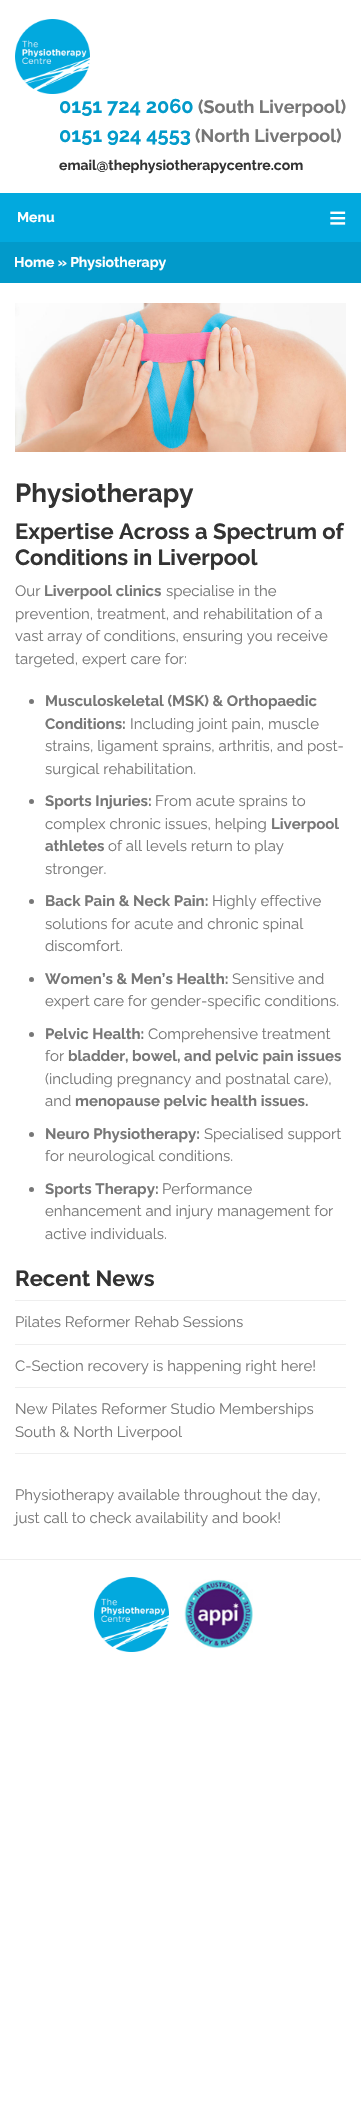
void draw(SkCanvas* canvas) {
  SkPaint paint;
  paint.setAntiAlias(true);
  auto face = [&](const char* family, int weight, float size, bool italic = false) {
    SkFontStyle style(weight, SkFontStyle::kNormal_Width,
      italic ? SkFontStyle::kItalic_Slant : SkFontStyle::kUpright_Slant);
    SkFont result(fontMgr->matchFamilyStyle(family, style), size);
    result.setSubpixel(true);
    return result;
  };
  auto paste = [&](const char* path, float x, float y, float w, float h) {
    auto image = SkImages::DeferredFromEncodedData(SkData::MakeFromFileName(path));
    canvas->drawImageRect(image, SkRect::MakeXYWH(x, y, w, h), SkSamplingOptions());
  };
  canvas->clear(0xffffffff);
  paste("img/1.png", 15, 19, 75, 75);
  paint.setColor(0xff02a9de);
  canvas->drawRect(SkRect::MakeXYWH(0, 193, 361, 49), paint);
  paint.setColor(0xff029aca);
  canvas->drawRect(SkRect::MakeXYWH(0, 242, 361, 41), paint);
  paste("img/2.png", 15, 303, 331, 149);
  paint.setColor(0xff777777);
  canvas->drawCircle(31.5f, 701.5f, 2.5f, paint);
  canvas->drawCircle(31.5f, 801.5f, 2.5f, paint);
  canvas->drawCircle(31.5f, 901.5f, 2.5f, paint);
  canvas->drawCircle(31.5f, 979.5f, 2.5f, paint);
  canvas->drawCircle(31.5f, 1034.5f, 2.5f, paint);
  canvas->drawCircle(31.5f, 1134.5f, 2.5f, paint);
  canvas->drawCircle(31.5f, 1189.5f, 2.5f, paint);
  {
    const struct { float x, y, w, h; SkColor color; } items[] = {
      {15, 1300, 331, 1, 0xffeeeeee},
      {15, 1344, 331, 1, 0xffeeeeee},
      {15, 1387, 331, 1, 0xffeeeeee},
      {15, 1453, 331, 1, 0xffeeeeee},
      {0, 1559, 361, 1, 0xffeeeeee},
    };
    for (auto [x, y, w, h, color] : items) {
      paint.setColor(color);
      canvas->drawRect(SkRect::MakeXYWH(x, y, w, h), paint);
    }
  }
  paste("img/3.png", 94, 1577, 75, 75);
  paste("img/4.png", 184, 1579, 69, 70);
  auto f0 = face("Raleway", 700, 20);
  paint.setColor(0xff029aca);
  canvas->drawString("0151 724 2060", 59, 113, f0, paint);
  auto f1 = face("Raleway", 700, 18);
  paint.setColor(0xff777777);
  canvas->drawString("(South Liverpool)", 198, 113, f1, paint);
  paint.setColor(0xff029aca);
  canvas->drawString("0151 924 4553", 59, 142, f0, paint);
  paint.setColor(0xff777777);
  canvas->drawString("(North Liverpool)", 195, 142, f1, paint);
  auto f2 = face("Raleway", 700, 14);
  paint.setColor(0xff333333);
  canvas->drawString("email@thephysiotherapycentre.com", 59, 170, f2, paint);
  paint.setColor(0xffffffff);
  canvas->drawString("Menu", 17, 222, f2, paint);
  auto f3 = face("Liberation Sans", 400, 30);
  canvas->drawString("≡", 329, 228, f3, paint);
  canvas->drawString("Home » Physiotherapy", 14, 267, f2, paint);
  auto f4 = face("Raleway", 700, 26);
  paint.setColor(0xff333333);
  canvas->drawString("Physiotherapy", 15, 502, f4, paint);
  auto f5 = face("Raleway", 700, 22);
  canvas->drawString("Expertise Across a Spectrum of", 15, 539, f5, paint);
  canvas->drawString("Conditions in Liverpool", 15, 565, f5, paint);
  auto f6 = face("Raleway", 400, 15);
  paint.setColor(0xff777777);
  canvas->drawString("Our", 15, 596, f6, paint);
  auto f7 = face("Raleway", 700, 15);
  canvas->drawString("Liverpool clinics", 44, 596, f7, paint);
  {
    const struct { const char* s; float x, y; } items[] = {
      {"specialise in the", 166, 596},
      {"prevention, treatment, and rehabilitation of a", 15, 619},
      {"vast array of conditions, ensuring you receive", 15, 641},
      {"targeted, expert care for:", 15, 664},
    };
    for (auto [s, x, y] : items) {
      canvas->drawString(s, x, y, f6, paint);
    }
  }
  canvas->drawString("Musculoskeletal (MSK) & Orthopaedic", 45, 706, f7, paint);
  canvas->drawString("Conditions:", 45, 729, f7, paint);
  {
    const struct { const char* s; float x, y; } items[] = {
      {"Including joint pain, muscle", 130, 729},
      {"strains, ligament sprains, arthritis, and post-", 45, 751},
      {"surgical rehabilitation.", 45, 774},
    };
    for (auto [s, x, y] : items) {
      canvas->drawString(s, x, y, f6, paint);
    }
  }
  canvas->drawString("Sports Injuries:", 45, 806, f7, paint);
  canvas->drawString("From acute sprains to", 155, 806, f6, paint);
  canvas->drawString("complex chronic issues, helping", 45, 829, f6, paint);
  canvas->drawString("Liverpool", 271, 829, f7, paint);
  canvas->drawString("athletes", 45, 851, f7, paint);
  canvas->drawString("of all levels return to play", 108, 851, f6, paint);
  canvas->drawString("stronger.", 45, 874, f6, paint);
  canvas->drawString("Back Pain & Neck Pain:", 45, 906, f7, paint);
  {
    const struct { const char* s; float x, y; } items[] = {
      {"Highly effective", 212, 906},
      {"solutions for acute and chronic spinal", 45, 929},
      {"discomfort.", 45, 951},
    };
    for (auto [s, x, y] : items) {
      canvas->drawString(s, x, y, f6, paint);
    }
  }
  canvas->drawString("Women’s & Men’s Health:", 45, 984, f7, paint);
  canvas->drawString("Sensitive and", 232, 984, f6, paint);
  canvas->drawString("expert care for gender-specific conditions.", 45, 1006, f6, paint);
  canvas->drawString("Pelvic Health:", 45, 1039, f7, paint);
  canvas->drawString("Comprehensive treatment", 148, 1039, f6, paint);
  canvas->drawString("for", 45, 1061, f6, paint);
  canvas->drawString("bladder, bowel, and pelvic pain issues", 68, 1061, f7, paint);
  canvas->drawString("(including pregnancy and postnatal care),", 45, 1084, f6, paint);
  canvas->drawString("and", 45, 1106, f6, paint);
  canvas->drawString("menopause pelvic health issues.", 75, 1106, f7, paint);
  canvas->drawString("Neuro Physiotherapy:", 45, 1139, f7, paint);
  canvas->drawString("Specialised support", 204, 1139, f6, paint);
  canvas->drawString("for neurological conditions.", 45, 1161, f6, paint);
  canvas->drawString("Sports Therapy:", 45, 1194, f7, paint);
  {
    const struct { const char* s; float x, y; } items[] = {
      {"Performance", 162, 1194},
      {"enhancement and injury management for", 45, 1216},
      {"active individuals.", 45, 1239},
    };
    for (auto [s, x, y] : items) {
      canvas->drawString(s, x, y, f6, paint);
    }
  }
  paint.setColor(0xff333333);
  canvas->drawString("Recent News", 15, 1286, f5, paint);
  paint.setColor(0xff777777);
  {
    const struct { const char* s; float x, y; } items[] = {
      {"Pilates Reformer Rehab Sessions", 15, 1327},
      {"C-Section recovery is happening right here!", 15, 1371},
      {"New Pilates Reformer Studio Memberships", 15, 1414},
      {"South & North Liverpool", 15, 1437},
      {"Physiotherapy available throughout the day,", 15, 1500},
      {"just call to check availability and book!", 15, 1523},
    };
    for (auto [s, x, y] : items) {
      canvas->drawString(s, x, y, f6, paint);
    }
  }
}
